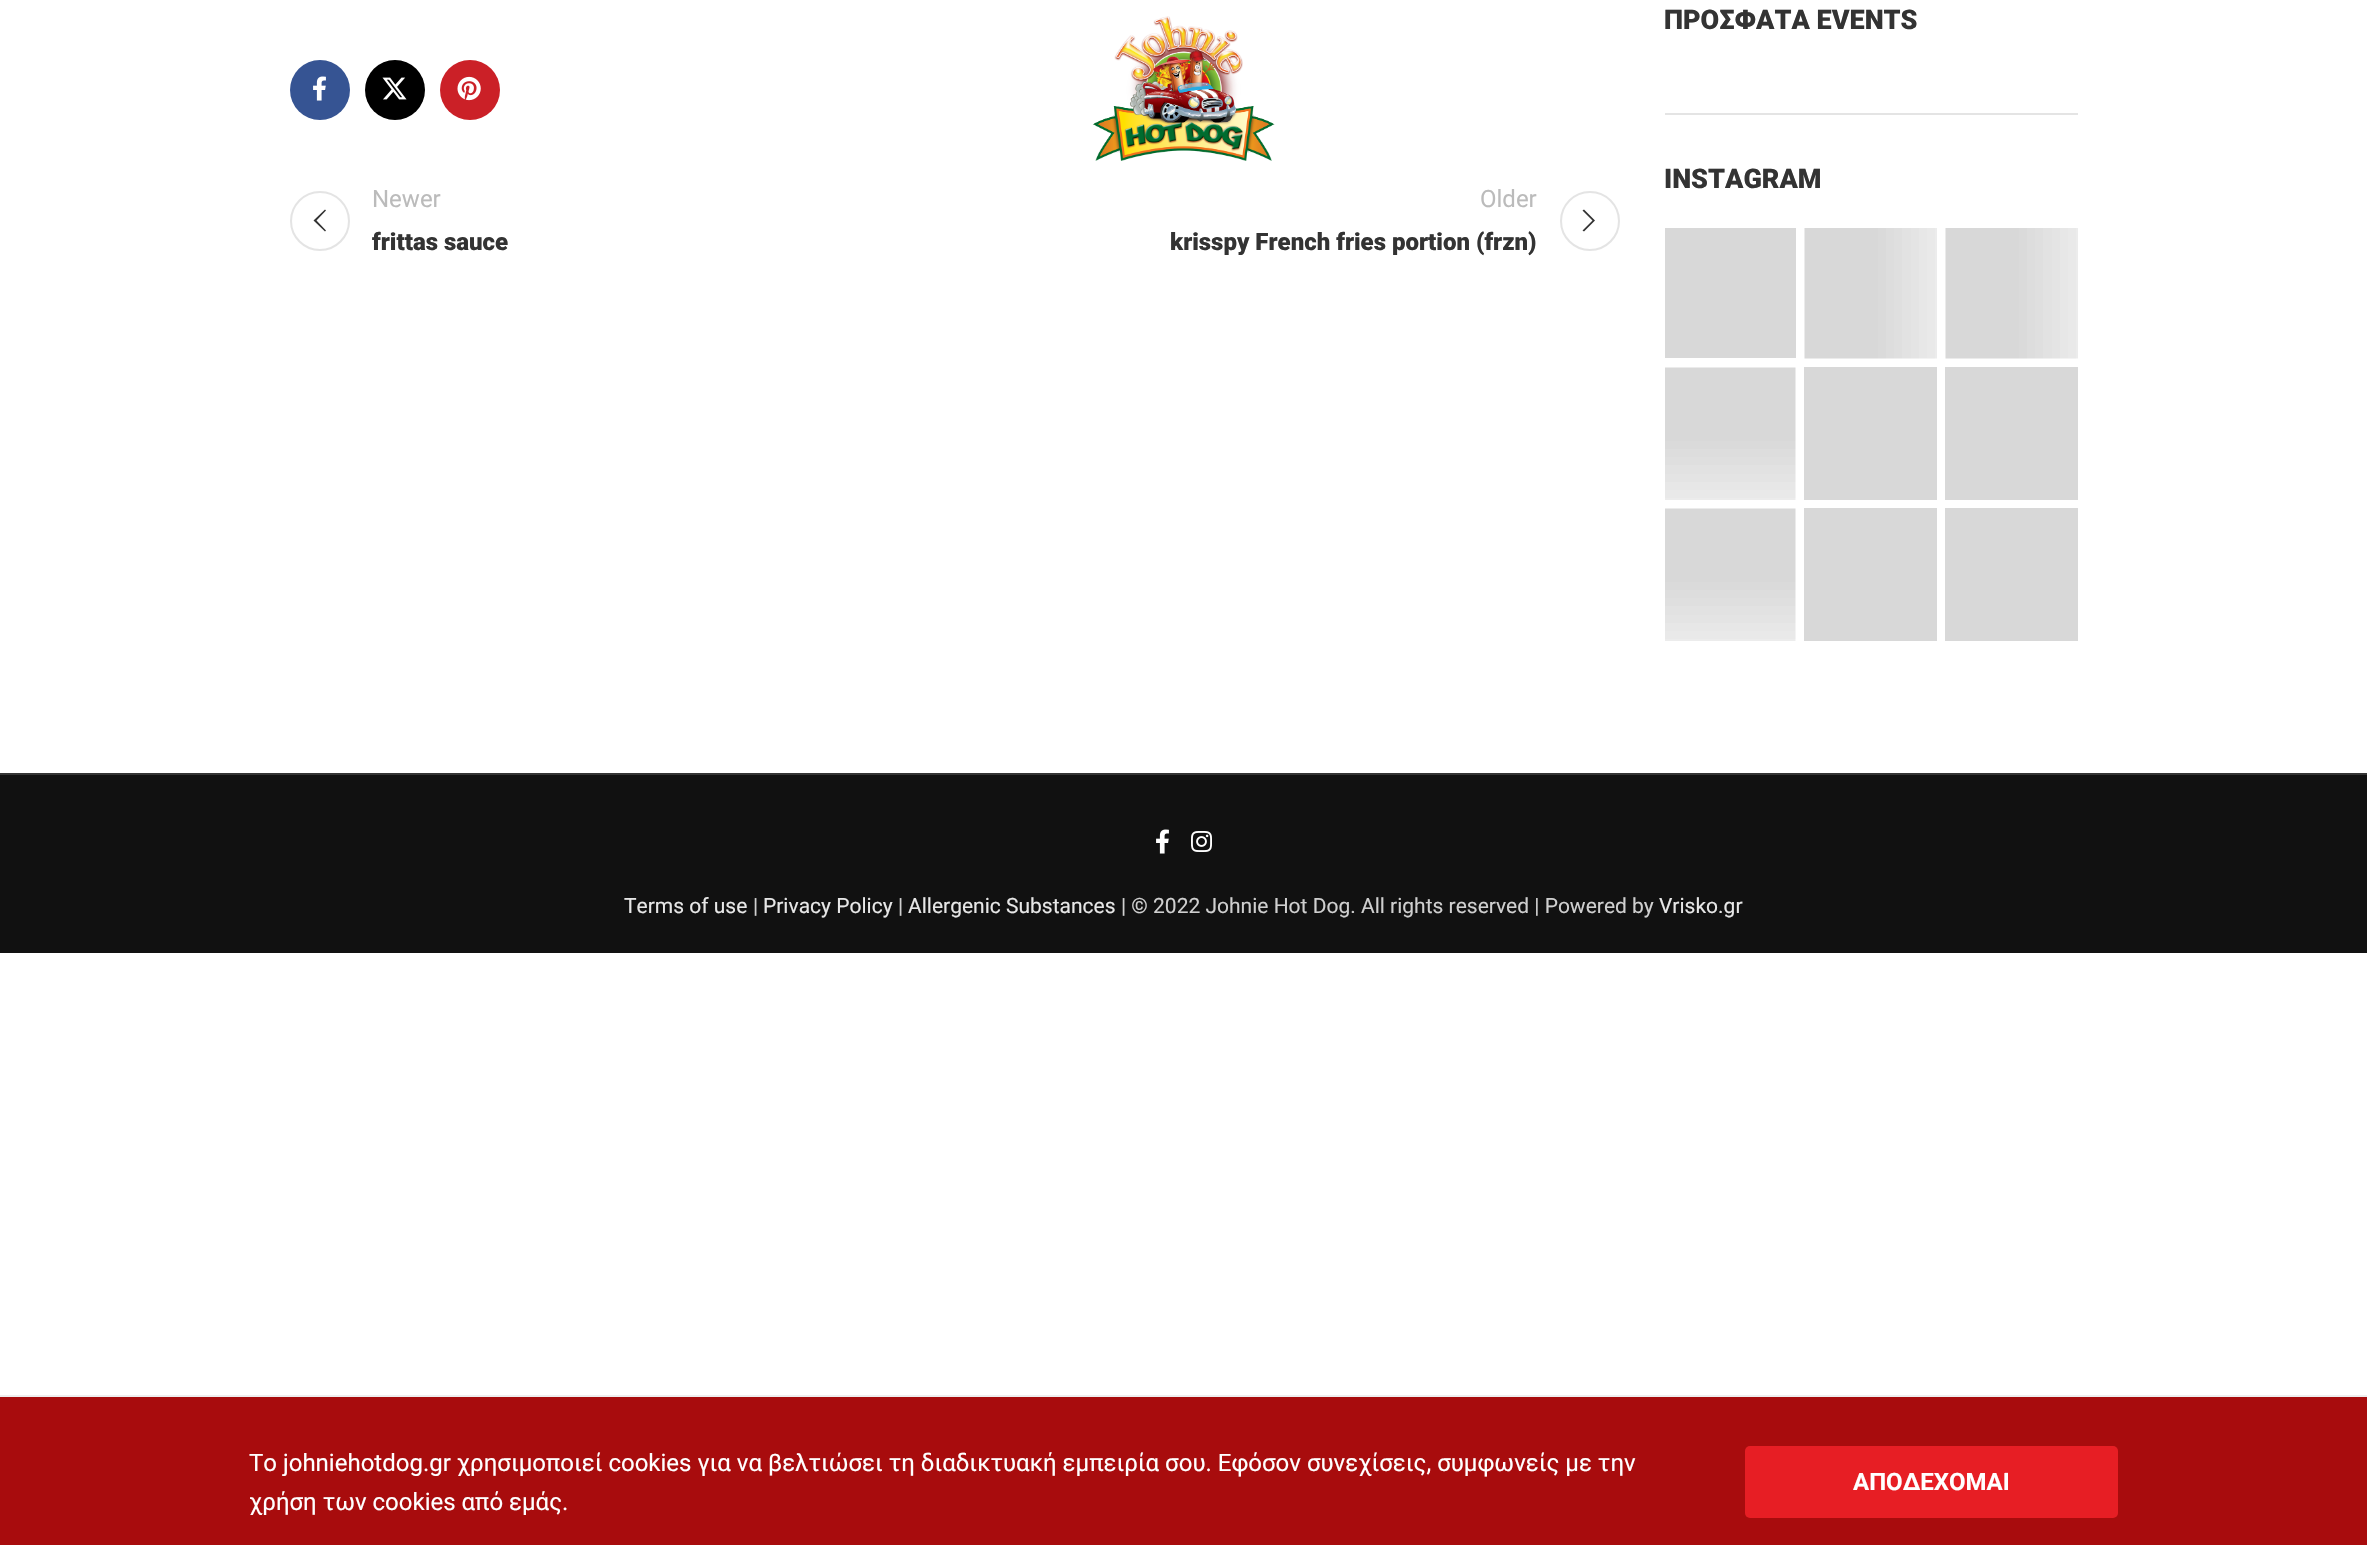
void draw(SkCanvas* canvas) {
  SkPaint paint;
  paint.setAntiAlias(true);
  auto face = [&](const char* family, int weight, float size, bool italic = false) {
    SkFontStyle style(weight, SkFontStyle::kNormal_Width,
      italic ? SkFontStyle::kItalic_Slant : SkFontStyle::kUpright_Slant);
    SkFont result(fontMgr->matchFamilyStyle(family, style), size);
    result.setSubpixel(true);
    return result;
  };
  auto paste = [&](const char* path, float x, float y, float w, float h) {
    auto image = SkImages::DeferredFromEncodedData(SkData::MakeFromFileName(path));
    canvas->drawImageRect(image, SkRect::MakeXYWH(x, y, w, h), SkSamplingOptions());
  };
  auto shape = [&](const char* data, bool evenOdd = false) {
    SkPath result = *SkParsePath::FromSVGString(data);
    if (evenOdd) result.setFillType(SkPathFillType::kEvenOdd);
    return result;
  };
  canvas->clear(0xffffffff);
  paint.setColor(0xffe4e4e4);
  canvas->drawRect(SkRect::MakeXYWH(1665, 113, 413, 2), paint);
  paint.setColor(0xffd8d8d8);
  canvas->drawRect(SkRect::MakeXYWH(1665, 228, 131, 130), paint);
  paste("img/1.png", 1804, 228, 133, 131);
  paste("img/1.png", 1945, 228, 133, 131);
  paste("img/2.png", 1665, 367, 131, 133);
  canvas->drawRect(SkRect::MakeXYWH(1804, 367, 133, 133), paint);
  canvas->drawRect(SkRect::MakeXYWH(1945, 367, 133, 133), paint);
  paste("img/2.png", 1665, 508, 131, 133);
  canvas->drawRect(SkRect::MakeXYWH(1804, 508, 133, 133), paint);
  canvas->drawRect(SkRect::MakeXYWH(1945, 508, 133, 133), paint);
  paint.setColor(0xff365493);
  canvas->drawCircle(320, 90, 30, paint);
  paste("img/3.png", 313, 76, 13, 25);
  paint.setColor(0xff000000);
  canvas->drawCircle(395, 90, 30, paint);
  paste("img/4.png", 382, 77, 25, 23);
  paint.setColor(0xffcb2027);
  canvas->drawCircle(470, 90, 30, paint);
  paste("img/5.png", 457, 76, 24, 25);
  paint.setStroke(true);
  paint.setStrokeWidth(2);
  paint.setColor(0xffe4e4e4);
  canvas->drawCircle(320, 221, 29, paint);
  paint.setStroke(false);
  paint.setColor(0xff333333);
  canvas->drawPath(shape("M326 210.5L325 209.5L313.5 220.5L325 231.5L326 230.5L316.5 220.5Z"), paint);
  paint.setStroke(true);
  paint.setColor(0xffe4e4e4);
  canvas->drawCircle(1590, 221, 29, paint);
  paint.setStroke(false);
  paint.setColor(0xff333333);
  canvas->drawPath(shape("M1582.5 210.5L1592.5 220.5L1582.5 230.5L1584 231.5L1595 220.5L1584 209.5Z"), paint);
  paste("img/6.png", 1092, 16, 183, 145);
  paint.setColor(0xff111111);
  canvas->drawRect(SkRect::MakeXYWH(0, 775, 2367, 178), paint);
  paint.setColor(0xff353535);
  canvas->drawRect(SkRect::MakeXYWH(0, 773, 2367, 2), paint);
  paste("img/7.png", 1156, 829, 13, 25);
  paste("img/8.png", 1191, 831, 21, 21);
  paint.setColor(0xffa80c0d);
  canvas->drawRect(SkRect::MakeXYWH(0, 1397, 2367, 148), paint);
  paint.setColor(0xffeeeeee);
  canvas->drawRect(SkRect::MakeXYWH(0, 1395, 2367, 2), paint);
  paint.setColor(0xffe71e24);
  canvas->drawRoundRect(SkRect::MakeXYWH(1745, 1446, 373, 72), 5, 5, paint);
  auto f0 = face("Roboto", 900, 27);
  paint.setColor(0xff333333);
  canvas->drawString("ΠΡΟΣΦΑΤΑ EVENTS", 1664, 29, f0, paint);
  canvas->drawString("INSTAGRAM", 1664, 188, f0, paint);
  auto f1 = face("Roboto", 400, 24);
  paint.setColor(0xffbbbbbb);
  canvas->drawString("Newer", 372, 207, f1, paint);
  auto f2 = face("Roboto", 900, 24);
  paint.setColor(0xff333333);
  canvas->drawString("frittas sauce", 372, 250, f2, paint);
  paint.setColor(0xffbbbbbb);
  canvas->drawString("Older", 1480, 207, f1, paint);
  paint.setColor(0xff333333);
  canvas->drawString("krisspy French fries portion (frzn)", 1170, 250, f2, paint);
  auto f3 = face("Roboto", 400, 21);
  paint.setColor(0xffe7e7e7);
  canvas->drawString("Terms of use", 624, 913, f3, paint);
  paint.setColor(0xffcfcfcf);
  canvas->drawString("|", 753, 913, f3, paint);
  paint.setColor(0xffe7e7e7);
  canvas->drawString("Privacy Policy", 763, 913, f3, paint);
  paint.setColor(0xffcfcfcf);
  canvas->drawString("|", 898, 913, f3, paint);
  paint.setColor(0xffe7e7e7);
  canvas->drawString("Allergenic Substances", 908, 913, f3, paint);
  paint.setColor(0xffcfcfcf);
  canvas->drawString("| © 2022 Johnie Hot Dog. All rights reserved | Powered by", 1121, 913, f3, paint);
  paint.setColor(0xffe7e7e7);
  canvas->drawString("Vrisko.gr", 1659, 913, f3, paint);
  paint.setColor(0xffffffff);
  canvas->drawString("To johniehotdog.gr χρησιμοποιεί cookies για να βελτιώσει τη διαδικτυακή εμπειρία σου. Εφόσον συνεχίσεις, συμφωνείς με την", 249, 1471, f1, paint);
  canvas->drawString("χρήση των cookies από εμάς.", 249, 1510, f1, paint);
  auto f4 = face("Roboto", 700, 24);
  canvas->drawString("ΑΠΟΔΕΧΟΜΑΙ", 1853, 1490, f4, paint);
}
